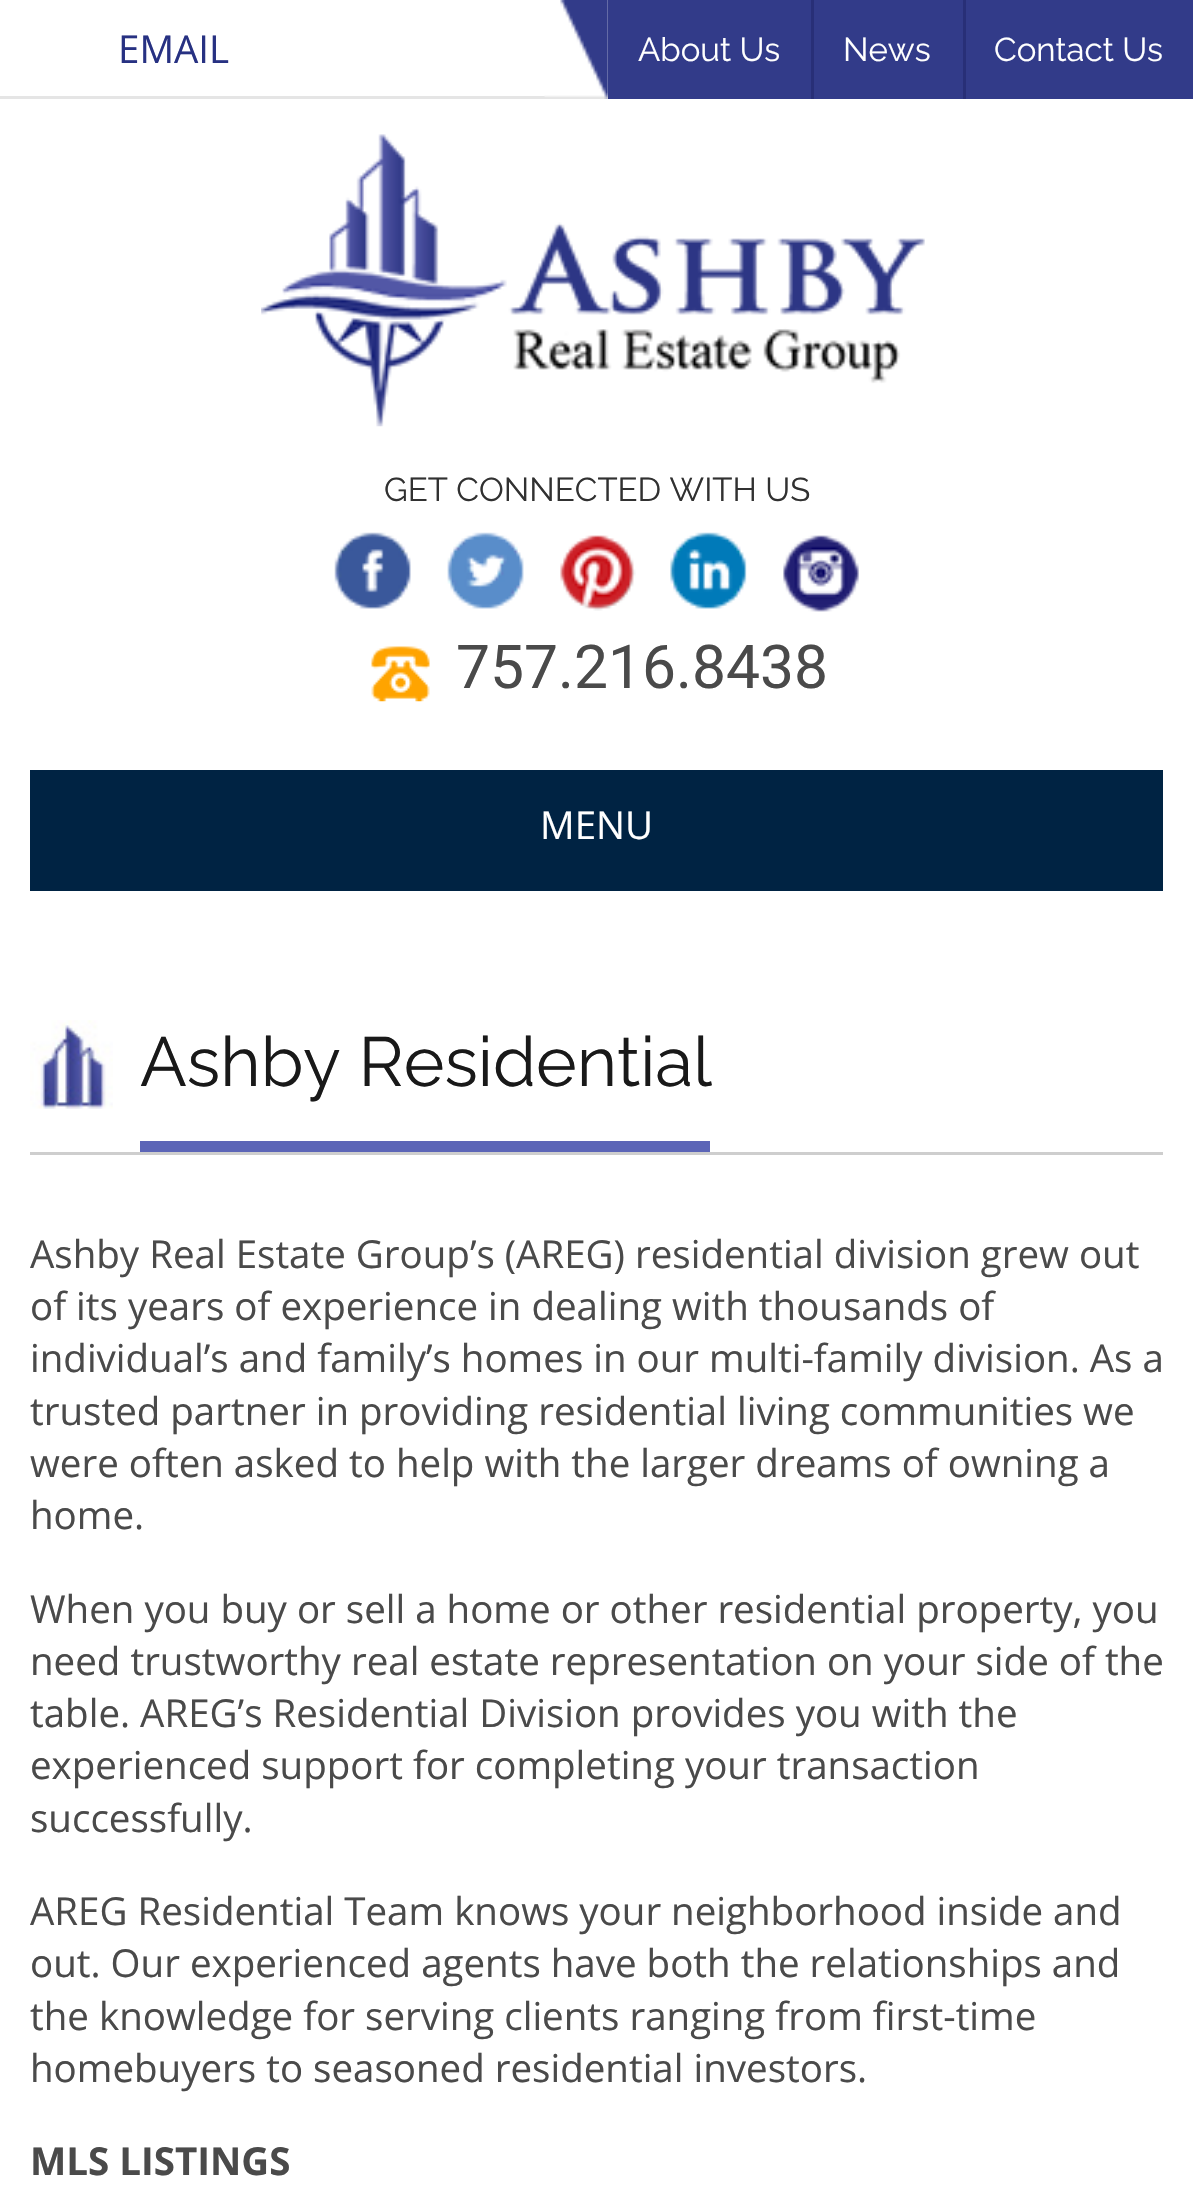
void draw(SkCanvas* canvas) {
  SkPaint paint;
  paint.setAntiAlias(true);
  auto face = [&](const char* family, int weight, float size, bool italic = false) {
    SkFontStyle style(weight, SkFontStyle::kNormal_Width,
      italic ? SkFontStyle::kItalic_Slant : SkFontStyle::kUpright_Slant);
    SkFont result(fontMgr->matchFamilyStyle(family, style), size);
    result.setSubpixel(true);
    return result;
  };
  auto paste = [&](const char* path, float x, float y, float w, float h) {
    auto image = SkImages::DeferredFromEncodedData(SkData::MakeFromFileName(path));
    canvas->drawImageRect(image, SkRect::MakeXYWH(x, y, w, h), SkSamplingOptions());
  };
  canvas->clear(0xffffffff);
  paint.setColor(0xffe5e5e5);
  canvas->drawRect(SkRect::MakeXYWH(0, 96, 608, 3), paint);
  paste("img/1.png", 544, 0, 64, 99);
  {
    const struct { float x, y, w, h; SkColor color; } items[] = {
      {608, 0, 585, 99, 0xff323b89},
      {811, 0, 3, 99, 0xff282f77},
      {963, 0, 3, 99, 0xff282f77},
    };
    for (auto [x, y, w, h, color] : items) {
      paint.setColor(color);
      canvas->drawRect(SkRect::MakeXYWH(x, y, w, h), paint);
    }
  }
  paste("img/2.png", 261, 134, 664, 293);
  paste("img/3.png", 334, 532, 77, 77);
  paste("img/4.png", 447, 532, 77, 77);
  paste("img/5.png", 560, 535, 76, 76);
  paste("img/6.png", 670, 532, 77, 77);
  paste("img/7.png", 783, 535, 76, 77);
  paste("img/8.png", 371, 646, 59, 56);
  paint.setColor(0xff002343);
  canvas->drawRect(SkRect::MakeXYWH(30, 770, 1133, 121), paint);
  paste("img/9.png", 30, 1020, 83, 89);
  paint.setColor(0xffcecece);
  canvas->drawRect(SkRect::MakeXYWH(30, 1152, 1133, 3), paint);
  paint.setColor(0xff5c65b7);
  canvas->drawRect(SkRect::MakeXYWH(140, 1141, 570, 11), paint);
  auto f0 = face("Open Sans", 400, 38.5f);
  paint.setColor(0xff273182);
  canvas->drawString("EMAIL", 118, 63, f0, paint);
  auto f1 = face("Raleway", 400, 33);
  paint.setColor(0xffffffff);
  {
    const struct { const char* s; float x, y; } items[] = {
      {"About Us", 638, 61},
      {"News", 843, 61},
      {"Contact Us", 994, 61},
    };
    for (auto [s, x, y] : items) {
      canvas->drawString(s, x, y, f1, paint);
    }
  }
  paint.setColor(0xff313131);
  canvas->drawString("GET CONNECTED WITH US", 384, 501, f1, paint);
  auto f2 = face("Roboto", 400, 60.5f);
  paint.setColor(0xff4a4a4a);
  canvas->drawString("757.216.8438", 456, 688, f2, paint);
  paint.setColor(0xffffffff);
  canvas->drawString("MENU", 540, 839, f0, paint);
  auto f3 = face("Raleway", 400, 69.25f);
  paint.setColor(0xff191919);
  canvas->drawString("Ashby Residential", 140, 1086, f3, paint);
  paint.setColor(0xff4a4a4a);
  {
    const struct { const char* s; float x, y; } items[] = {
      {"Ashby Real Estate Group’s (AREG) residential division grew out", 30, 1268},
      {"of its years of experience in dealing with thousands of", 30, 1320},
      {"individual’s and family’s homes in our multi-family division. As a", 30, 1372},
      {"trusted partner in providing residential living communities we", 30, 1425},
      {"were often asked to help with the larger dreams of owning a", 30, 1477},
      {"home.", 30, 1529},
      {"When you buy or sell a home or other residential property, you", 30, 1623},
      {"need trustworthy real estate representation on your side of the", 30, 1675},
      {"table. AREG’s Residential Division provides you with the", 30, 1727},
      {"experienced support for completing your transaction", 30, 1779},
      {"successfully.", 30, 1832},
      {"AREG Residential Team knows your neighborhood inside and", 30, 1925},
      {"out. Our experienced agents have both the relationships and", 30, 1977},
      {"the knowledge for serving clients ranging from first-time", 30, 2030},
      {"homebuyers to seasoned residential investors.", 30, 2082},
    };
    for (auto [s, x, y] : items) {
      canvas->drawString(s, x, y, f0, paint);
    }
  }
  auto f4 = face("Open Sans", 700, 38.5f);
  canvas->drawString("MLS LISTINGS", 30, 2175, f4, paint);
}
